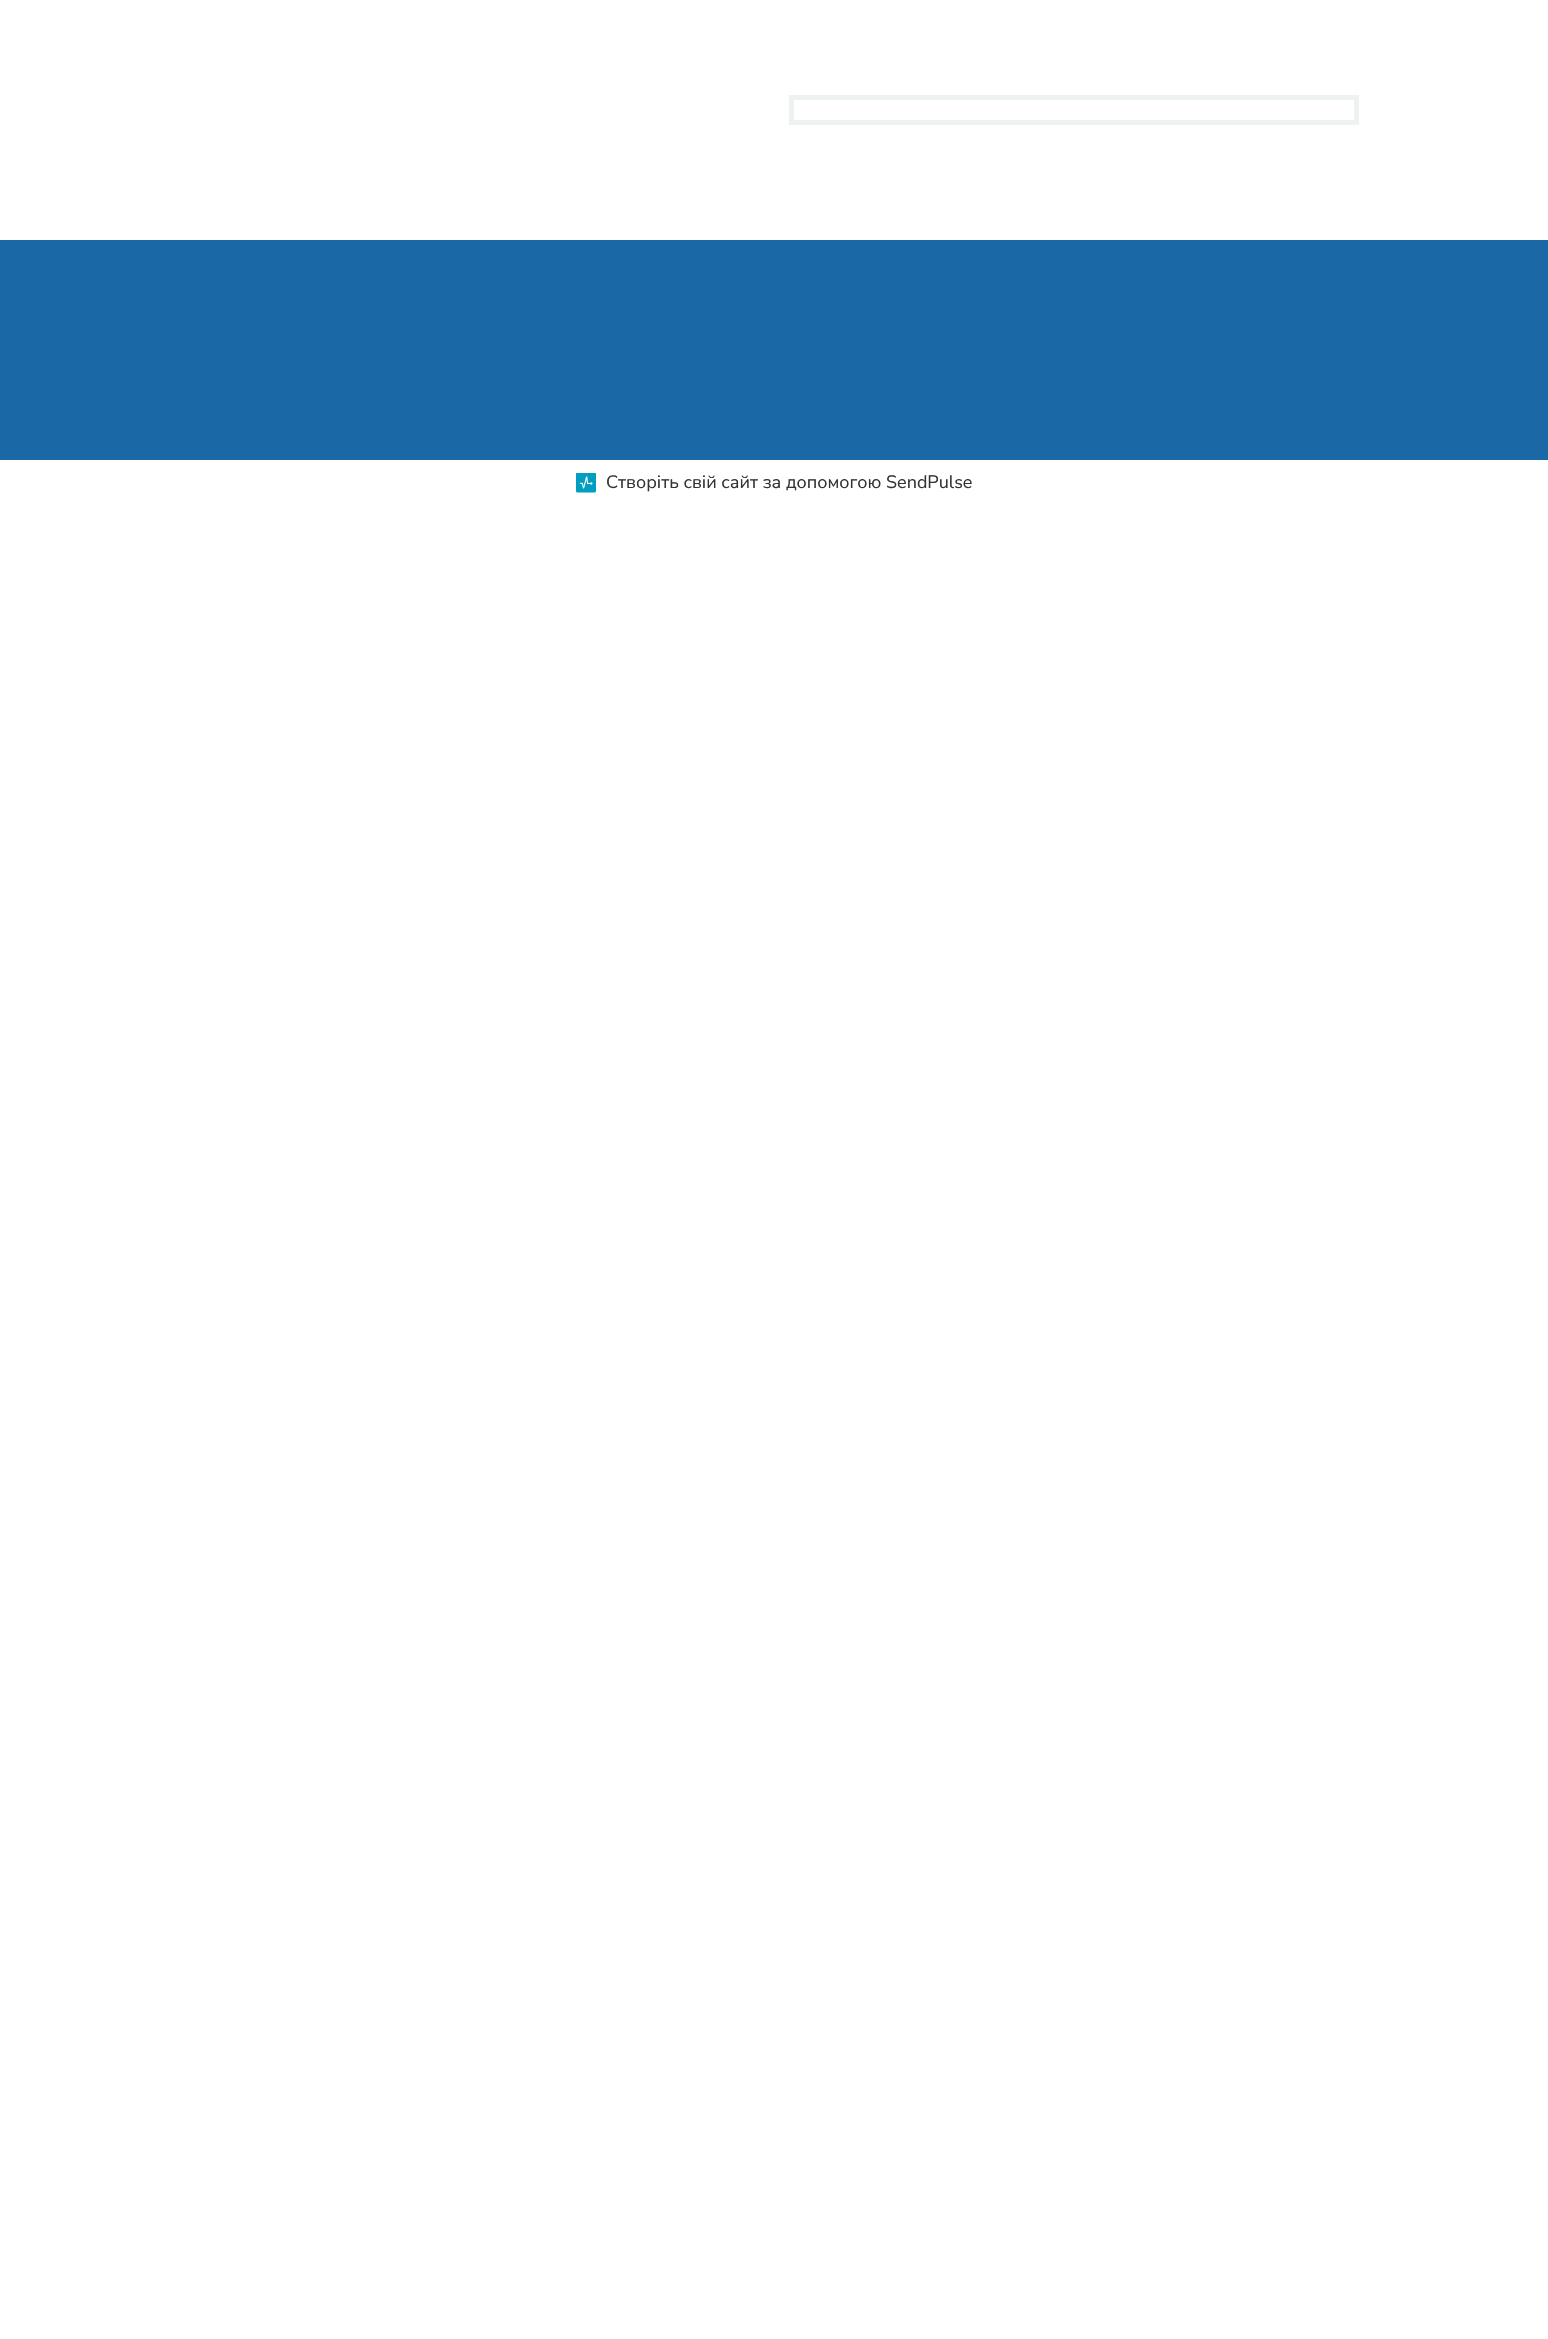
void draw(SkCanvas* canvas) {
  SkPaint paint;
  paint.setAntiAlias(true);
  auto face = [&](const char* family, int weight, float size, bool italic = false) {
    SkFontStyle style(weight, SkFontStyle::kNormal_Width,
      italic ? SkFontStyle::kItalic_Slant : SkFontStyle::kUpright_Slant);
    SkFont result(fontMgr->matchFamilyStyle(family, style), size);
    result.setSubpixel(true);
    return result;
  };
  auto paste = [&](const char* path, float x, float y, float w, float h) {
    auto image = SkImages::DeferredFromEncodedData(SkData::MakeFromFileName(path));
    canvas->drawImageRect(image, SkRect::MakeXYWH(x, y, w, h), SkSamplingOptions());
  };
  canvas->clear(0xffffffff);
  paint.setStroke(true);
  paint.setStrokeWidth(5);
  paint.setColor(0xffeef1f2);
  canvas->drawRect(SkRect::MakeXYWH(791.5f, 97.5f, 565, 25), paint);
  paint.setStroke(false);
  paint.setColor(0xff1a68a5);
  canvas->drawRect(SkRect::MakeXYWH(0, 240, 1548, 220), paint);
  paste("img/1.png", 576, 473, 20, 20);
  auto f0 = face("Nunito Sans", 400, 18);
  paint.setColor(0xff333333);
  canvas->drawString("Створіть свій сайт за допомогою SendPulse", 606, 488, f0, paint);
}
